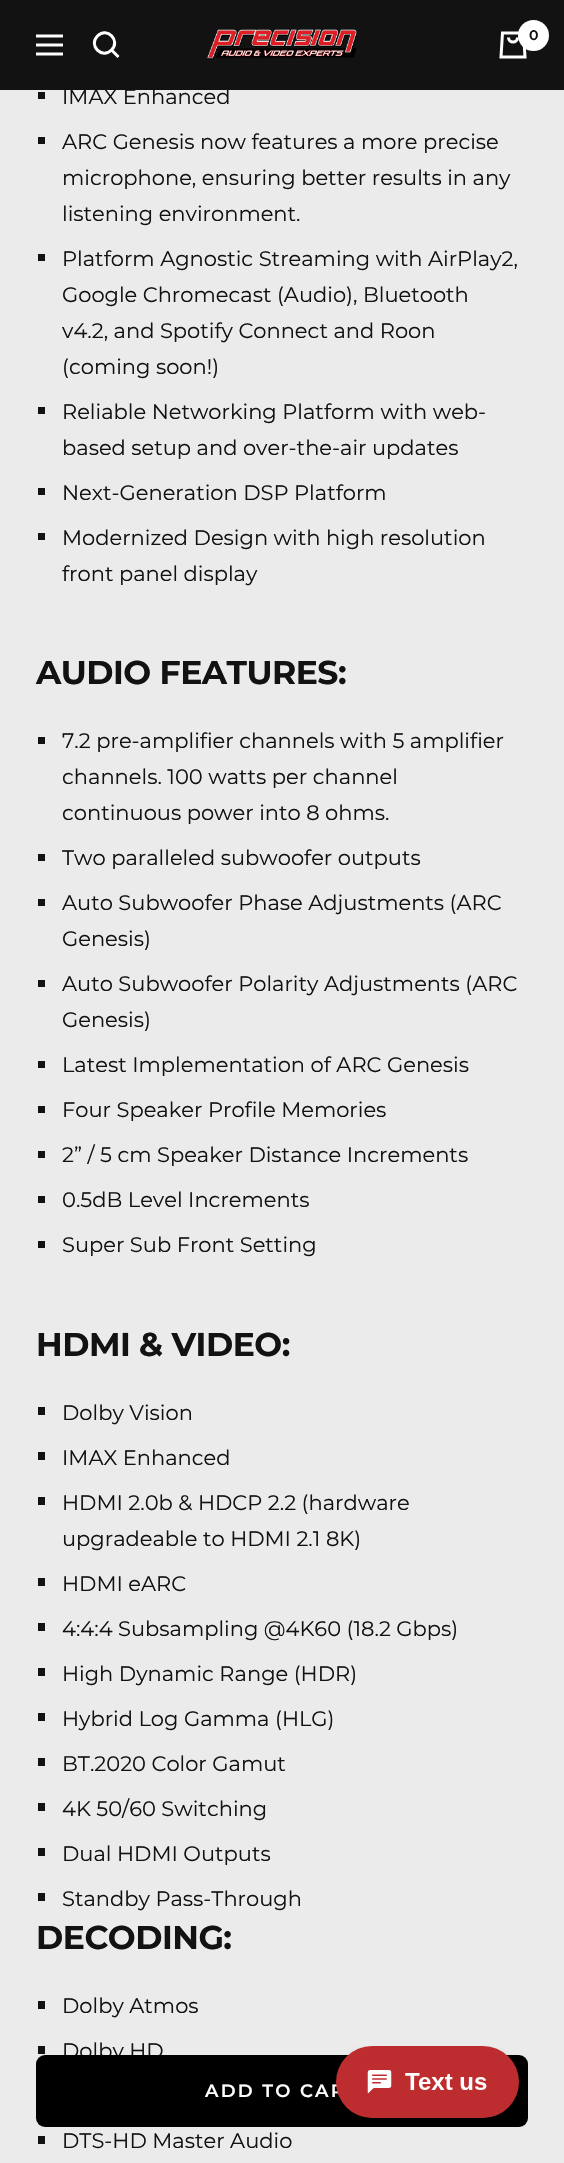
void draw(SkCanvas* canvas) {
  SkPaint paint;
  paint.setAntiAlias(true);
  auto face = [&](const char* family, int weight, float size, bool italic = false) {
    SkFontStyle style(weight, SkFontStyle::kNormal_Width,
      italic ? SkFontStyle::kItalic_Slant : SkFontStyle::kUpright_Slant);
    SkFont result(fontMgr->matchFamilyStyle(family, style), size);
    result.setSubpixel(true);
    return result;
  };
  auto writeSpaced = [&](const char* s, float x, float y, const SkFont& font, const SkPaint& ink, float letter, float word) {
    std::vector<SkGlyphID> glyphs(font.countText(s, strlen(s), SkTextEncoding::kUTF8));
    std::vector<float> xs(glyphs.size());
    font.textToGlyphs(s, strlen(s), SkTextEncoding::kUTF8, glyphs);
    font.getXPos(glyphs, xs, x);
    float extra = 0;
    for (size_t i = 0; i < glyphs.size(); i++) {
      xs[i] += extra;
      extra += letter + word * (glyphs[i] == font.unicharToGlyph(' '));
    }
    canvas->drawTextBlob(SkTextBlob::MakeFromPosHGlyphs(glyphs, xs, y, font), 0, 0, ink);
  };
  auto paste = [&](const char* path, float x, float y, float w, float h) {
    auto image = SkImages::DeferredFromEncodedData(SkData::MakeFromFileName(path));
    canvas->drawImageRect(image, SkRect::MakeXYWH(x, y, w, h), SkSamplingOptions());
  };
  auto shape = [&](const char* data, bool evenOdd = false) {
    SkPath result = *SkParsePath::FromSVGString(data);
    if (evenOdd) result.setFillType(SkPathFillType::kEvenOdd);
    return result;
  };
  canvas->clear(0xffebebeb);
  paint.setColor(0xff121212);
  canvas->drawRect(SkRect::MakeXYWH(0, 0, 564, 90), paint);
  paint.setStroke(true);
  paint.setStrokeWidth(3);
  paint.setColor(0xffffffff);
  canvas->drawPath(shape("M36 36H63M36 54H63ZM36 45H63Z"), paint);
  canvas->drawPath(shape("M111.5 50C121 40.5 107 26.5 97.5 36C88 45.5 102 59.5 111.5 50ZM111.5 50L118.5 57"), paint);
  paste("img/1.png", 207, 29, 150, 31);
  canvas->drawPath(shape("M502.5 33H523.5L525 57H501ZM508.5 37.5C508.5 43.5 517.5 43.5 517.5 37.5"), paint);
  paint.setStroke(false);
  canvas->drawCircle(533.5f, 35.5f, 15.5f, paint);
  {
    const struct { float x, y, w, h; SkColor color; } items[] = {
      {38, 92, 7, 7, 0xff121212},
      {38, 137, 7, 7, 0xff121212},
      {38, 254, 7, 7, 0xff121212},
      {38, 407, 7, 7, 0xff121212},
      {38, 488, 7, 7, 0xff121212},
      {38, 533, 7, 7, 0xff121212},
      {38, 737, 7, 7, 0xff121212},
      {38, 854, 7, 7, 0xff121212},
      {38, 899, 7, 7, 0xff121212},
      {38, 980, 7, 7, 0xff121212},
      {38, 1061, 7, 7, 0xff121212},
      {38, 1106, 7, 7, 0xff121212},
      {38, 1151, 7, 7, 0xff121212},
      {38, 1196, 7, 7, 0xff121212},
      {38, 1241, 7, 7, 0xff121212},
      {38, 1407, 7, 8, 0xff121212},
      {38, 1452, 7, 8, 0xff121212},
      {38, 1497, 7, 8, 0xff121212},
      {38, 1578, 7, 8, 0xff121212},
      {38, 1623, 7, 8, 0xff121212},
      {38, 1668, 7, 8, 0xff121212},
      {38, 1713, 7, 8, 0xff121212},
      {38, 1758, 7, 8, 0xff121212},
      {38, 1803, 7, 8, 0xff121212},
      {38, 1848, 7, 8, 0xff121212},
      {38, 1893, 7, 8, 0xff121212},
      {38, 2001, 7, 8, 0xff121212},
      {38, 2046, 7, 8, 0xff121212},
      {38, 2136, 7, 8, 0xff121212},
    };
    for (auto [x, y, w, h, color] : items) {
      paint.setColor(color);
      canvas->drawRect(SkRect::MakeXYWH(x, y, w, h), paint);
    }
  }
  auto f0 = face("Montserrat", 600, 14);
  canvas->drawString("0", 529, 40, f0, paint);
  auto f1 = face("Montserrat", 400, 21);
  {
    const struct { const char* s; float x, y; } items[] = {
      {"IMAX Enhanced", 62, 104},
      {"ARC Genesis now features a more precise", 62, 149},
      {"microphone, ensuring better results in any", 62, 185},
      {"listening environment.", 62, 221},
      {"Platform Agnostic Streaming with AirPlay2,", 62, 266},
      {"Google Chromecast (Audio), Bluetooth", 62, 302},
      {"v4.2, and Spotify Connect and Roon", 62, 338},
      {"(coming soon!)", 62, 374},
      {"Reliable Networking Platform with web-", 62, 419},
      {"based setup and over-the-air updates", 62, 455},
      {"Next-Generation DSP Platform", 62, 500},
      {"Modernized Design with high resolution", 62, 545},
      {"front panel display", 62, 581},
    };
    for (auto [s, x, y] : items) {
      canvas->drawString(s, x, y, f1, paint);
    }
  }
  auto f2 = face("Montserrat", 700, 33);
  writeSpaced("AUDIO FEATURES:", 36, 684, f2, paint, -0.5f, 0);
  {
    const struct { const char* s; float x, y; } items[] = {
      {"7.2 pre-amplifier channels with 5 amplifier", 62, 748},
      {"channels. 100 watts per channel", 62, 784},
      {"continuous power into 8 ohms.", 62, 820},
      {"Two paralleled subwoofer outputs", 62, 865},
      {"Auto Subwoofer Phase Adjustments (ARC", 62, 910},
      {"Genesis)", 62, 946},
      {"Auto Subwoofer Polarity Adjustments (ARC", 62, 991},
      {"Genesis)", 62, 1027},
      {"Latest Implementation of ARC Genesis", 62, 1072},
      {"Four Speaker Profile Memories", 62, 1117},
      {"2” / 5 cm Speaker Distance Increments", 62, 1162},
      {"0.5dB Level Increments", 62, 1207},
      {"Super Sub Front Setting", 62, 1252},
    };
    for (auto [s, x, y] : items) {
      canvas->drawString(s, x, y, f1, paint);
    }
  }
  writeSpaced("HDMI & VIDEO:", 36, 1356, f2, paint, -0.5f, 0);
  {
    const struct { const char* s; float x, y; } items[] = {
      {"Dolby Vision", 62, 1420},
      {"IMAX Enhanced", 62, 1465},
      {"HDMI 2.0b & HDCP 2.2 (hardware", 62, 1510},
      {"upgradeable to HDMI 2.1 8K)", 62, 1546},
      {"HDMI eARC", 62, 1591},
      {"4:4:4 Subsampling @4K60 (18.2 Gbps)", 62, 1636},
      {"High Dynamic Range (HDR)", 62, 1681},
      {"Hybrid Log Gamma (HLG)", 62, 1726},
      {"BT.2020 Color Gamut", 62, 1771},
      {"4K 50/60 Switching", 62, 1816},
      {"Dual HDMI Outputs", 62, 1861},
      {"Standby Pass-Through", 62, 1906},
    };
    for (auto [s, x, y] : items) {
      canvas->drawString(s, x, y, f1, paint);
    }
  }
  writeSpaced("DECODING:", 36, 1949, f2, paint, -0.5f, 0);
  {
    const struct { const char* s; float x, y; } items[] = {
      {"Dolby Atmos", 62, 2013},
      {"Dolby HD", 62, 2058},
      {"DTS-HD Master Audio", 62, 2148},
    };
    for (auto [s, x, y] : items) {
      canvas->drawString(s, x, y, f1, paint);
    }
  }
  paint.setColor(0xff000000);
  canvas->drawRoundRect(SkRect::MakeXYWH(36, 2055, 492, 72), 9, 9, paint);
  auto f3 = face("Montserrat", 600, 18);
  paint.setColor(0xffffffff);
  writeSpaced("ADD TO CAR", 205, 2097, f3, paint, 2.25f, 0);
  paste("img/2.png", 335, 2046, 184, 81);
}
